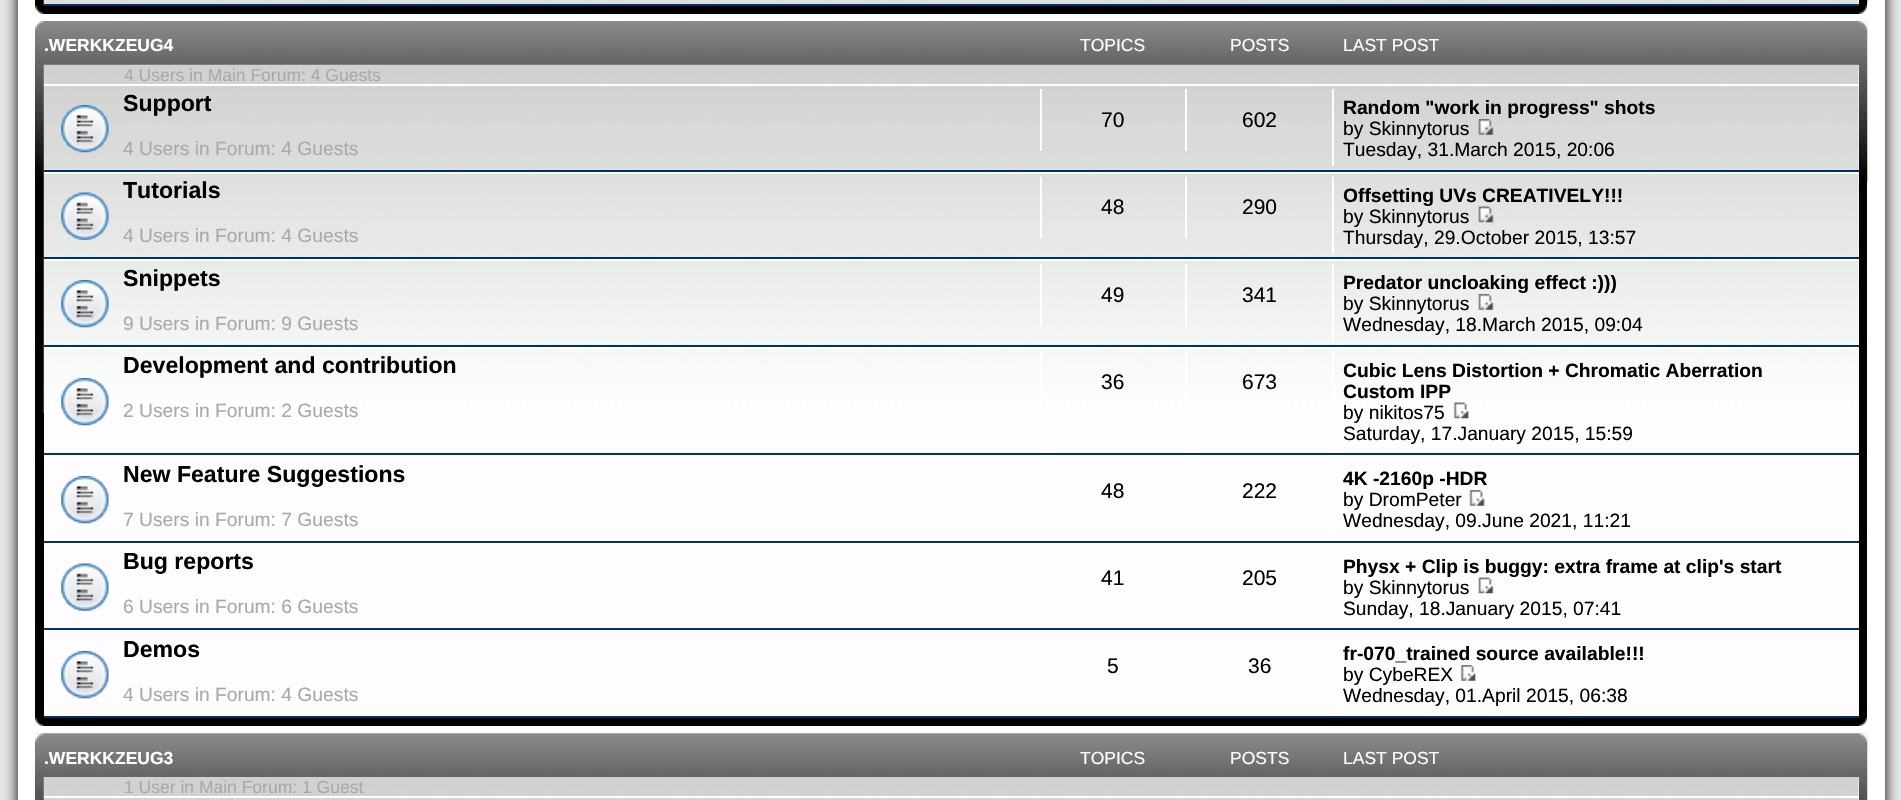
void draw(SkCanvas* canvas) {
  SkPaint paint;
  paint.setAntiAlias(true);
  auto face = [&](const char* family, int weight, float size, bool italic = false) {
    SkFontStyle style(weight, SkFontStyle::kNormal_Width,
      italic ? SkFontStyle::kItalic_Slant : SkFontStyle::kUpright_Slant);
    SkFont result(fontMgr->matchFamilyStyle(family, style), size);
    result.setSubpixel(true);
    return result;
  };
  auto paste = [&](const char* path, float x, float y, float w, float h) {
    auto image = SkImages::DeferredFromEncodedData(SkData::MakeFromFileName(path));
    canvas->drawImageRect(image, SkRect::MakeXYWH(x, y, w, h), SkSamplingOptions());
  };
  canvas->clear(0xffe4e4e4);
  paint.setColor(0xff000000);
  paint.setMaskFilter(SkMaskFilter::MakeBlur(kNormal_SkBlurStyle, 7));
  canvas->drawRoundRect(SkRect::MakeXYWH(18, -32, 1867, 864), 11, 11, paint);
  paint.setMaskFilter(nullptr);
  paint.setColor(0xffffffff);
  canvas->drawRect(SkRect::MakeXYWH(18, 0, 1867, 800), paint);
  paint.setColor(0xff000000);
  canvas->drawRect(SkRect::MakeXYWH(35, 0, 1832, 14), paint);
  paste("img/1.png", 1859, 0, 9, 4);
  paint.setColor(0xfffefcff);
  canvas->drawRect(SkRect::MakeXYWH(1858, 0, 1, 4), paint);
  paste("img/2.png", 43, 0, 1816, 6);
  paint.setColor(0xff003366);
  canvas->drawRect(SkRect::MakeXYWH(44, 4, 1815, 2), paint);
  paste("img/3.png", 35, 5, 10, 9);
  paste("img/4.png", 1858, 5, 9, 9);
  paint.setColor(0xff000000);
  canvas->drawRect(SkRect::MakeXYWH(35, 182, 1832, 544), paint);
  paste("img/5.png", 35, 21, 1833, 161);
  paste("img/6.png", 35, 21, 10, 9);
  paste("img/7.png", 1858, 21, 10, 9);
  paint.setColor(0xfffefcff);
  canvas->drawRect(SkRect::MakeXYWH(44, 65, 1815, 651), paint);
  paste("img/8.png", 43, 64, 1816, 349);
  paint.setColor(0xffffffff);
  canvas->drawRect(SkRect::MakeXYWH(44, 84, 1815, 2), paint);
  paint.setColor(0xff003366);
  canvas->drawRect(SkRect::MakeXYWH(44, 170, 1815, 2), paint);
  paste("img/9.png", 61, 105, 48, 48);
  {
    const struct { float x, y, w, h; SkColor color; } items[] = {
      {1040, 89, 2, 62, 0xffffffff},
      {1185, 89, 2, 62, 0xffffffff},
      {1332, 89, 2, 77, 0xffffffff},
    };
    for (auto [x, y, w, h, color] : items) {
      paint.setColor(color);
      canvas->drawRect(SkRect::MakeXYWH(x, y, w, h), paint);
    }
  }
  paste("img/10.png", 1478, 119, 16, 16);
  canvas->drawRect(SkRect::MakeXYWH(44, 172, 1815, 2), paint);
  paint.setColor(0xff003366);
  canvas->drawRect(SkRect::MakeXYWH(44, 257, 1815, 2), paint);
  paste("img/11.png", 61, 192, 48, 48);
  {
    const struct { float x, y, w, h; SkColor color; } items[] = {
      {1040, 177, 2, 61, 0xffffffff},
      {1185, 177, 2, 61, 0xffffffff},
      {1332, 177, 2, 77, 0xffffffff},
      {44, 259, 1815, 2, 0xffffffff},
      {44, 345, 1815, 2, 0xff003366},
    };
    for (auto [x, y, w, h, color] : items) {
      paint.setColor(color);
      canvas->drawRect(SkRect::MakeXYWH(x, y, w, h), paint);
    }
  }
  paste("img/13.png", 61, 280, 48, 48);
  {
    const struct { float x, y, w, h; SkColor color; } items[] = {
      {1040, 264, 2, 62, 0xffffffff},
      {1185, 264, 2, 62, 0xffffffff},
      {1332, 264, 2, 77, 0xffffffff},
    };
    for (auto [x, y, w, h, color] : items) {
      paint.setColor(color);
      canvas->drawRect(SkRect::MakeXYWH(x, y, w, h), paint);
    }
  }
  paste("img/14.png", 1478, 294, 16, 16);
  canvas->drawRect(SkRect::MakeXYWH(44, 347, 1815, 2), paint);
  paint.setColor(0xff003366);
  canvas->drawRect(SkRect::MakeXYWH(44, 453, 1815, 2), paint);
  paste("img/15.png", 61, 378, 48, 48);
  {
    const struct { float x, y, w, h; SkColor color; } items[] = {
      {1040, 352, 2, 61, 0xffffffff},
      {1185, 352, 2, 61, 0xffffffff},
      {1332, 352, 2, 98, 0xffffffff},
    };
    for (auto [x, y, w, h, color] : items) {
      paint.setColor(color);
      canvas->drawRect(SkRect::MakeXYWH(x, y, w, h), paint);
    }
  }
  paste("img/16.png", 1453, 402, 16, 17);
  canvas->drawRect(SkRect::MakeXYWH(44, 455, 1815, 2), paint);
  paint.setColor(0xff003366);
  canvas->drawRect(SkRect::MakeXYWH(44, 541, 1815, 2), paint);
  paste("img/17.png", 61, 476, 48, 48);
  {
    const struct { float x, y, w, h; SkColor color; } items[] = {
      {1040, 460, 2, 62, 0xffffffff},
      {1185, 460, 2, 62, 0xffffffff},
      {1332, 460, 2, 77, 0xffffffff},
    };
    for (auto [x, y, w, h, color] : items) {
      paint.setColor(color);
      canvas->drawRect(SkRect::MakeXYWH(x, y, w, h), paint);
    }
  }
  paste("img/18.png", 1469, 490, 16, 16);
  canvas->drawRect(SkRect::MakeXYWH(44, 543, 1815, 2), paint);
  paint.setColor(0xff003366);
  canvas->drawRect(SkRect::MakeXYWH(44, 628, 1815, 2), paint);
  paste("img/19.png", 61, 563, 48, 48);
  {
    const struct { float x, y, w, h; SkColor color; } items[] = {
      {1040, 548, 2, 61, 0xffffffff},
      {1185, 548, 2, 61, 0xffffffff},
      {1332, 548, 2, 77, 0xffffffff},
      {44, 630, 1815, 2, 0xffffffff},
      {44, 716, 1815, 2, 0xff003366},
    };
    for (auto [x, y, w, h, color] : items) {
      paint.setColor(color);
      canvas->drawRect(SkRect::MakeXYWH(x, y, w, h), paint);
    }
  }
  paste("img/17.png", 61, 651, 48, 48);
  {
    const struct { float x, y, w, h; SkColor color; } items[] = {
      {1040, 635, 2, 62, 0xffffffff},
      {1185, 635, 2, 62, 0xffffffff},
      {1332, 635, 2, 77, 0xffffffff},
    };
    for (auto [x, y, w, h, color] : items) {
      paint.setColor(color);
      canvas->drawRect(SkRect::MakeXYWH(x, y, w, h), paint);
    }
  }
  paste("img/21.png", 1460, 665, 16, 16);
  paste("img/22.png", 35, 717, 10, 9);
  paste("img/23.png", 1858, 717, 9, 9);
  paste("img/24.png", 35, 733, 1833, 67);
  paste("img/25.png", 35, 733, 10, 9);
  paste("img/26.png", 1858, 733, 10, 9);
  paint.setColor(0xfffefcff);
  canvas->drawRect(SkRect::MakeXYWH(1858, 777, 1, 23), paint);
  paste("img/27.png", 43, 777, 1816, 23);
  paint.setColor(0xffffffff);
  canvas->drawRect(SkRect::MakeXYWH(44, 796, 1815, 2), paint);
  auto f0 = face("Liberation Sans", 700, 17.5f);
  canvas->drawString(".WERKKZEUG4", 44, 51, f0, paint);
  auto f1 = face("Liberation Sans", 400, 17.5f);
  {
    const struct { const char* s; float x, y; } items[] = {
      {"TOPICS", 1080, 51},
      {"POSTS", 1230, 51},
      {"LAST POST", 1343, 51},
    };
    for (auto [s, x, y] : items) {
      canvas->drawString(s, x, y, f1, paint);
    }
  }
  paint.setColor(0xffa9a9a9);
  canvas->drawString("4 Users in Main Forum: 4 Guests", 124, 81, f1, paint);
  auto f2 = face("Liberation Sans", 700, 23.1f);
  paint.setColor(0xff000000);
  canvas->drawString("Support", 123, 111, f2, paint);
  auto f3 = face("Liberation Sans", 400, 19.25f);
  paint.setColor(0xffa9a9a9);
  canvas->drawString("4 Users in Forum: 4 Guests", 123, 155, f3, paint);
  auto f4 = face("Liberation Sans", 400, 21);
  paint.setColor(0xff000000);
  canvas->drawString("70", 1101, 127, f4, paint);
  canvas->drawString("602", 1242, 127, f4, paint);
  auto f5 = face("Liberation Sans", 700, 19.25f);
  canvas->drawString("Random \"work in progress\" shots", 1343, 114, f5, paint);
  canvas->drawString("by Skinnytorus", 1343, 135, f3, paint);
  canvas->drawString("Tuesday, 31.March 2015, 20:06", 1343, 156, f3, paint);
  canvas->drawString("Tutorials", 123, 198, f2, paint);
  paint.setColor(0xffa9a9a9);
  canvas->drawString("4 Users in Forum: 4 Guests", 123, 242, f3, paint);
  paint.setColor(0xff000000);
  canvas->drawString("48", 1101, 214, f4, paint);
  canvas->drawString("290", 1242, 214, f4, paint);
  canvas->drawString("Offsetting UVs CREATIVELY!!!", 1343, 202, f5, paint);
  canvas->drawString("by Skinnytorus", 1343, 223, f3, paint);
  paste("img/12.png", 1478, 206, 16, 17);
  canvas->drawString("Thursday, 29.October 2015, 13:57", 1343, 244, f3, paint);
  canvas->drawString("Snippets", 123, 286, f2, paint);
  paint.setColor(0xffa9a9a9);
  canvas->drawString("9 Users in Forum: 9 Guests", 123, 330, f3, paint);
  paint.setColor(0xff000000);
  canvas->drawString("49", 1101, 302, f4, paint);
  canvas->drawString("341", 1242, 302, f4, paint);
  canvas->drawString("Predator uncloaking effect :)))", 1343, 289, f5, paint);
  canvas->drawString("by Skinnytorus", 1343, 310, f3, paint);
  canvas->drawString("Wednesday, 18.March 2015, 09:04", 1343, 331, f3, paint);
  canvas->drawString("Development and contribution", 123, 373, f2, paint);
  paint.setColor(0xffa9a9a9);
  canvas->drawString("2 Users in Forum: 2 Guests", 123, 417, f3, paint);
  paint.setColor(0xff000000);
  canvas->drawString("36", 1101, 389, f4, paint);
  canvas->drawString("673", 1242, 389, f4, paint);
  canvas->drawString("Cubic Lens Distortion + Chromatic Aberration", 1343, 377, f5, paint);
  canvas->drawString("Custom IPP", 1343, 398, f5, paint);
  canvas->drawString("by nikitos75", 1343, 419, f3, paint);
  canvas->drawString("Saturday, 17.January 2015, 15:59", 1343, 440, f3, paint);
  canvas->drawString("New Feature Suggestions", 123, 482, f2, paint);
  paint.setColor(0xffa9a9a9);
  canvas->drawString("7 Users in Forum: 7 Guests", 123, 526, f3, paint);
  paint.setColor(0xff000000);
  canvas->drawString("48", 1101, 498, f4, paint);
  canvas->drawString("222", 1242, 498, f4, paint);
  canvas->drawString("4K -2160p -HDR", 1343, 485, f5, paint);
  canvas->drawString("by DromPeter", 1343, 506, f3, paint);
  canvas->drawString("Wednesday, 09.June 2021, 11:21", 1343, 527, f3, paint);
  canvas->drawString("Bug reports", 123, 569, f2, paint);
  paint.setColor(0xffa9a9a9);
  canvas->drawString("6 Users in Forum: 6 Guests", 123, 613, f3, paint);
  paint.setColor(0xff000000);
  canvas->drawString("41", 1101, 585, f4, paint);
  canvas->drawString("205", 1242, 585, f4, paint);
  canvas->drawString("Physx + Clip is buggy: extra frame at clip's start", 1343, 573, f5, paint);
  canvas->drawString("by Skinnytorus", 1343, 594, f3, paint);
  paste("img/20.png", 1478, 577, 16, 17);
  canvas->drawString("Sunday, 18.January 2015, 07:41", 1343, 615, f3, paint);
  canvas->drawString("Demos", 123, 657, f2, paint);
  paint.setColor(0xffa9a9a9);
  canvas->drawString("4 Users in Forum: 4 Guests", 123, 701, f3, paint);
  paint.setColor(0xff000000);
  canvas->drawString("5", 1107, 673, f4, paint);
  canvas->drawString("36", 1248, 673, f4, paint);
  canvas->drawString("fr-070_trained source available!!!", 1343, 660, f5, paint);
  canvas->drawString("by CybeREX", 1343, 681, f3, paint);
  canvas->drawString("Wednesday, 01.April 2015, 06:38", 1343, 702, f3, paint);
  paint.setColor(0xffffffff);
  canvas->drawString(".WERKKZEUG3", 44, 764, f0, paint);
  {
    const struct { const char* s; float x, y; } items[] = {
      {"TOPICS", 1080, 764},
      {"POSTS", 1230, 764},
      {"LAST POST", 1343, 764},
    };
    for (auto [s, x, y] : items) {
      canvas->drawString(s, x, y, f1, paint);
    }
  }
  paint.setColor(0xffa9a9a9);
  canvas->drawString("1 User in Main Forum: 1 Guest", 124, 793, f1, paint);
}
